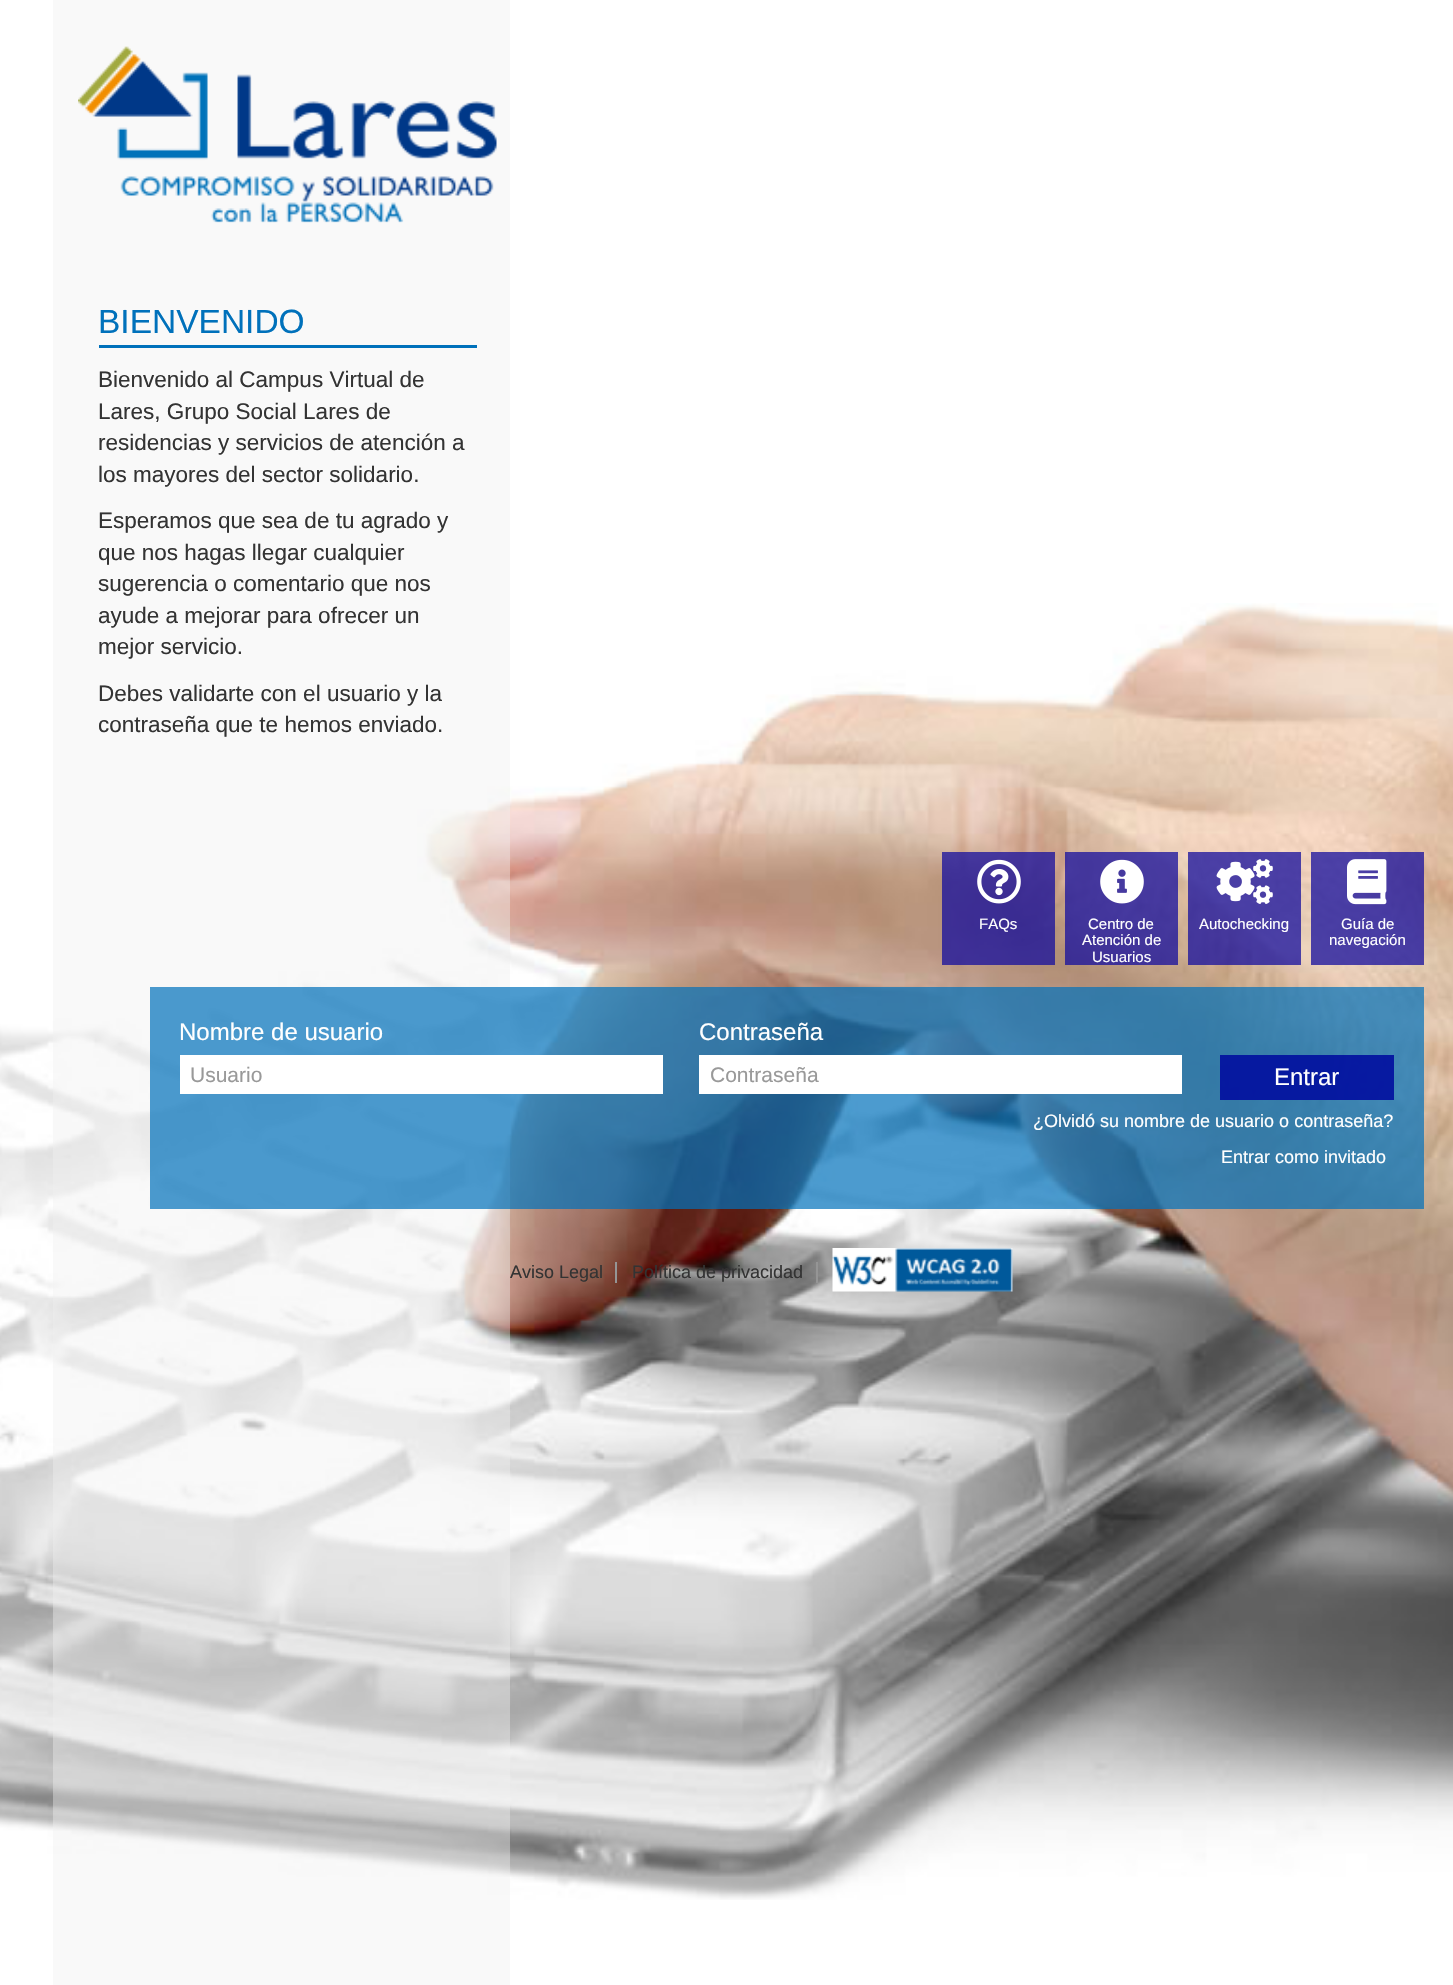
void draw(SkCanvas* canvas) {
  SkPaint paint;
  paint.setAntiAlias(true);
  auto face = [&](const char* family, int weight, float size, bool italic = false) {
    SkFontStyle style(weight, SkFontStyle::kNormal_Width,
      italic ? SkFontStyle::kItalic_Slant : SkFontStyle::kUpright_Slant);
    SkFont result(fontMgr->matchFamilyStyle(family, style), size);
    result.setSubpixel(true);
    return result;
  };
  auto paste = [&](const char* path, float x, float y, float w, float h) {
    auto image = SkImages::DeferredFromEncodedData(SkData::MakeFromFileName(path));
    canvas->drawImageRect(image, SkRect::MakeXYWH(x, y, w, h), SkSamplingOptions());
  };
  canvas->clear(0xffffffff);
  paste("img/1.png", 0, 603, 1453, 1297);
  paint.setColor(0x66efefef);
  canvas->drawRect(SkRect::MakeXYWH(53, 0, 457, 1985), paint);
  paste("img/2.png", 78, 46, 419, 177);
  paint.setColor(0xff0071bb);
  canvas->drawRect(SkRect::MakeXYWH(99, 345, 378, 3), paint);
  paint.setColor(0xbf140d9e);
  canvas->drawRect(SkRect::MakeXYWH(942, 852, 113, 113), paint);
  paste("img/3.png", 977, 859, 44, 45);
  canvas->drawRect(SkRect::MakeXYWH(1065, 852, 113, 113), paint);
  paste("img/4.png", 1100, 859, 44, 45);
  canvas->drawRect(SkRect::MakeXYWH(1188, 852, 113, 113), paint);
  paste("img/5.png", 1216, 859, 57, 45);
  canvas->drawRect(SkRect::MakeXYWH(1311, 852, 113, 113), paint);
  paste("img/6.png", 1347, 859, 40, 46);
  {
    const struct { float x, y, w, h; SkColor color; } items[] = {
      {150, 987, 1274, 222, 0xb30071bb},
      {180, 1055, 483, 39, 0xffffffff},
      {699, 1055, 483, 39, 0xffffffff},
      {1220, 1055, 174, 45, 0xe6000d9e},
      {615, 1262, 2, 21, 0xff959595},
      {816, 1262, 2, 21, 0xff959595},
    };
    for (auto [x, y, w, h, color] : items) {
      paint.setColor(color);
      canvas->drawRect(SkRect::MakeXYWH(x, y, w, h), paint);
    }
  }
  paste("img/7.png", 832, 1248, 181, 44);
  auto f0 = face("Liberation Sans", 400, 33.5f);
  paint.setColor(0xff0071bb);
  canvas->drawString("BIENVENIDO", 98, 333, f0, paint);
  auto f1 = face("Liberation Sans", 400, 22.5f);
  paint.setColor(0xff333333);
  {
    const struct { const char* s; float x, y; } items[] = {
      {"Bienvenido al Campus Virtual de", 98, 387},
      {"Lares, Grupo Social Lares de", 98, 419},
      {"residencias y servicios de atención a", 98, 450},
      {"los mayores del sector solidario.", 98, 482},
      {"Esperamos que sea de tu agrado y", 98, 528},
      {"que nos hagas llegar cualquier", 98, 560},
      {"sugerencia o comentario que nos", 98, 591},
      {"ayude a mejorar para ofrecer un", 98, 623},
      {"mejor servicio.", 98, 654},
      {"Debes validarte con el usuario y la", 98, 701},
      {"contraseña que te hemos enviado.", 98, 732},
    };
    for (auto [s, x, y] : items) {
      canvas->drawString(s, x, y, f1, paint);
    }
  }
  auto f2 = face("Liberation Sans", 400, 15);
  paint.setColor(0xffffffff);
  {
    const struct { const char* s; float x, y; } items[] = {
      {"FAQs", 979, 929},
      {"Centro de", 1088, 929},
      {"Atención de", 1082, 945},
      {"Usuarios", 1092, 962},
      {"Autochecking", 1199, 929},
      {"Guía de", 1341, 929},
      {"navegación", 1329, 945},
    };
    for (auto [s, x, y] : items) {
      canvas->drawString(s, x, y, f2, paint);
    }
  }
  auto f3 = face("Liberation Sans", 400, 24);
  canvas->drawString("Nombre de usuario", 179, 1040, f3, paint);
  auto f4 = face("Liberation Sans", 400, 21);
  paint.setColor(0xff999999);
  canvas->drawString("Usuario", 190, 1082, f4, paint);
  paint.setColor(0xffffffff);
  canvas->drawString("Contraseña", 699, 1040, f3, paint);
  paint.setColor(0xff999999);
  canvas->drawString("Contraseña", 710, 1082, f4, paint);
  paint.setColor(0xffffffff);
  canvas->drawString("Entrar", 1274, 1085, f3, paint);
  auto f5 = face("Liberation Sans", 400, 18);
  canvas->drawString("¿Olvidó su nombre de usuario o contraseña?", 1033, 1127, f5, paint);
  canvas->drawString("Entrar como invitado", 1221, 1163, f5, paint);
  paint.setColor(0xff333333);
  canvas->drawString("Aviso Legal", 510, 1278, f5, paint);
  canvas->drawString("Política de privacidad", 632, 1278, f5, paint);
}
